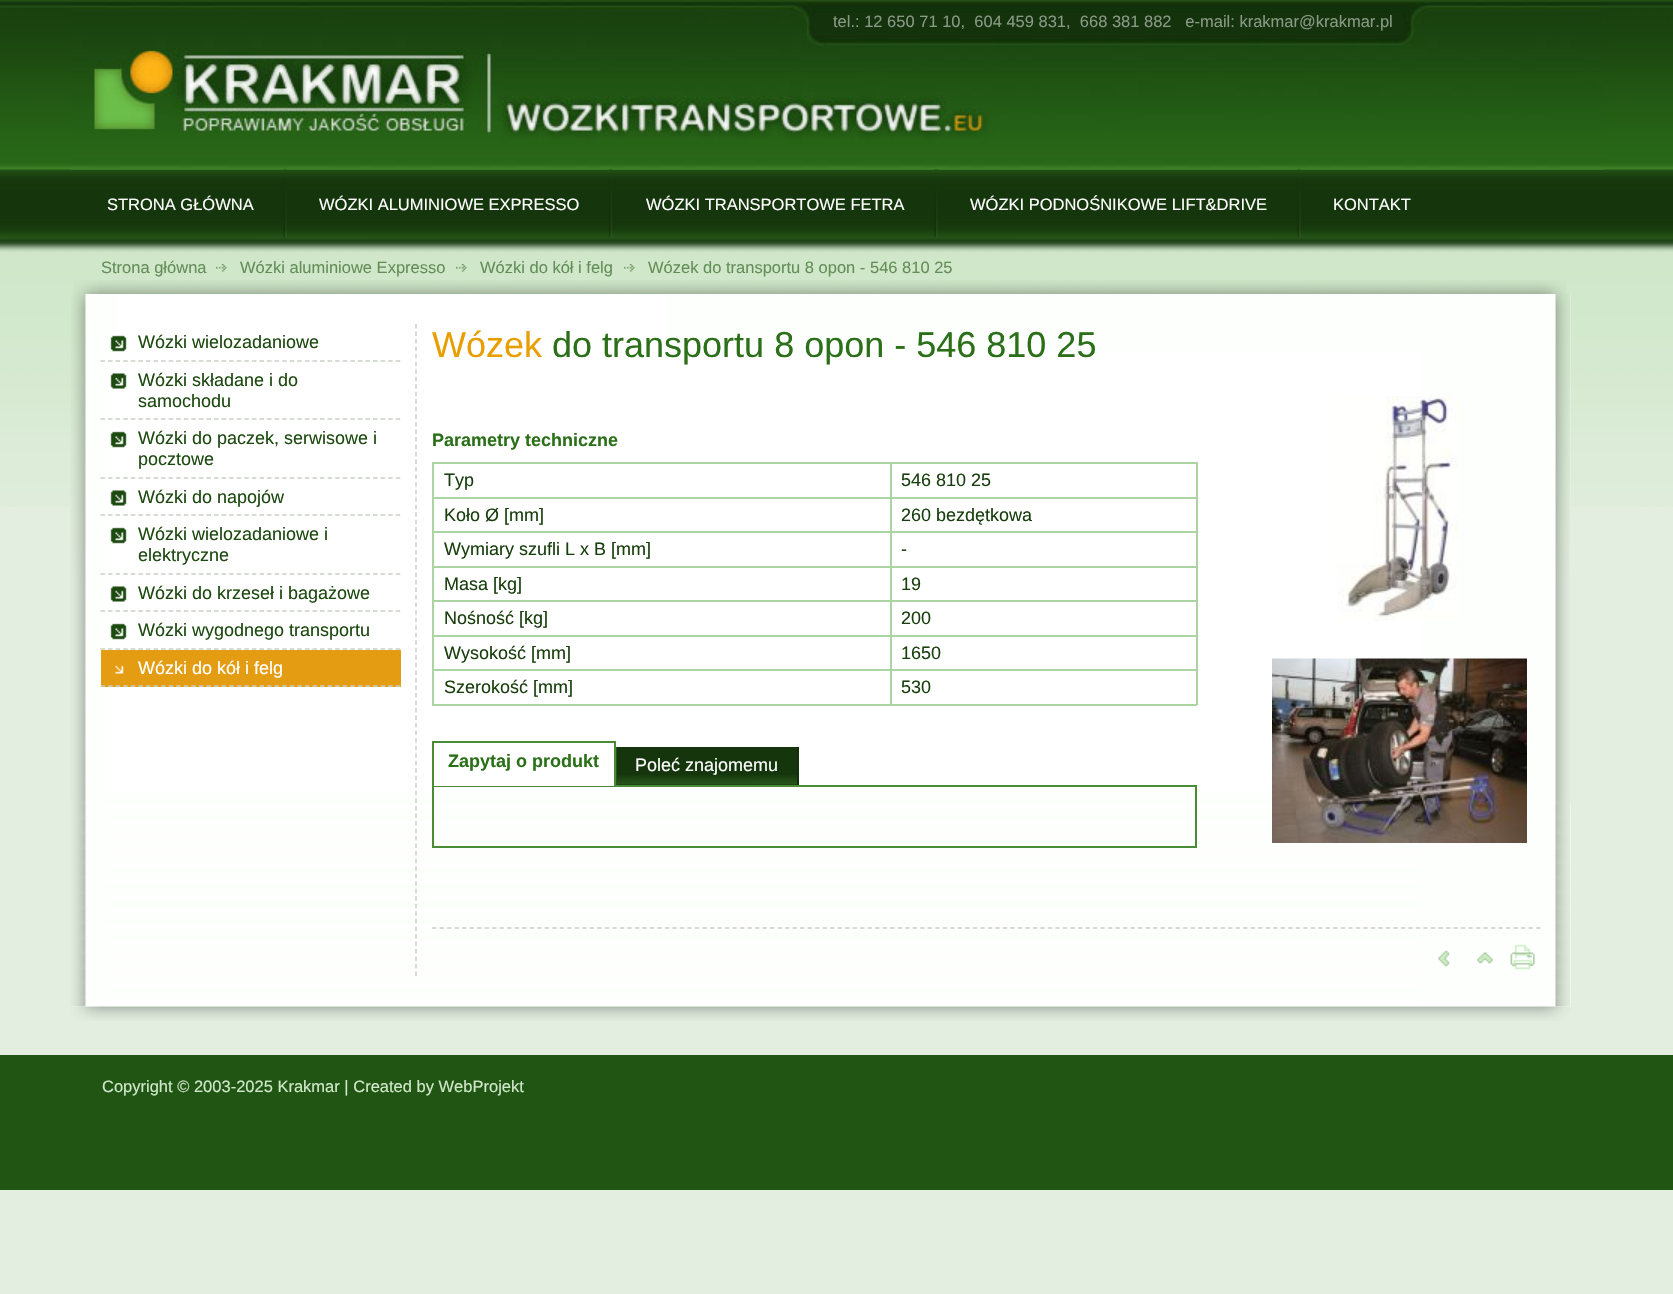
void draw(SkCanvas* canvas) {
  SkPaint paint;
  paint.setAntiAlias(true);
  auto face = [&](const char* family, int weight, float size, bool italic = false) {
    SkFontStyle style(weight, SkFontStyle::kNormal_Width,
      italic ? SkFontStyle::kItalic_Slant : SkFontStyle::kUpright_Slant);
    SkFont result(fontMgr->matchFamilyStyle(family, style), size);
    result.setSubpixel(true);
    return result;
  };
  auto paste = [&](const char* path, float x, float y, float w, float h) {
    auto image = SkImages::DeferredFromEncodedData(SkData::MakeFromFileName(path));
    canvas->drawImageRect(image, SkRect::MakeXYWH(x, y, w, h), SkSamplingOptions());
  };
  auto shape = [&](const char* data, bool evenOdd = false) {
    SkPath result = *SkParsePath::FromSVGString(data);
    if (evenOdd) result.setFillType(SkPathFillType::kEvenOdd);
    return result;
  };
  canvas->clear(0xffe3eee0);
  paste("img/1.png", 0, 0, 1673, 507);
  paste("img/2.png", 70, 0, 1534, 170);
  paste("img/3.png", 283, 169, 4, 68);
  paste("img/4.png", 609, 169, 3, 68);
  paste("img/5.png", 934, 169, 4, 68);
  paste("img/5.png", 1297, 169, 4, 68);
  paste("img/6.png", 73, 280, 1494, 14);
  paste("img/7.png", 216, 264, 11, 8);
  paste("img/8.png", 456, 264, 11, 8);
  paste("img/7.png", 624, 264, 11, 8);
  paint.setColor(0xffffffff);
  canvas->drawRect(SkRect::MakeXYWH(71, 294, 1500, 713), paint);
  paste("img/9.png", 70, 294, 1501, 713);
  paste("img/10.png", 70, 294, 1501, 510);
  paste("img/11.png", 110, 335, 17, 17);
  paint.setStroke(true);
  paint.setStrokeWidth(1.5f);
  paint.setColor(0xffc9d0c7);
  paint.setPathEffect(SkDashPathEffect::Make({{4.5f, 3.07f}}, 0));
  canvas->drawPath(shape("M100.5 361H400.5"), paint);
  paint.setPathEffect(nullptr);
  paste("img/12.png", 110, 373, 17, 16);
  paint.setPathEffect(SkDashPathEffect::Make({{4.5f, 3.07f}}, 0));
  canvas->drawPath(shape("M100.5 419H400.5"), paint);
  paint.setPathEffect(nullptr);
  paste("img/13.png", 110, 431, 17, 17);
  paint.setPathEffect(SkDashPathEffect::Make({{4.5f, 3.07f}}, 0));
  canvas->drawPath(shape("M100.5 478H400.5"), paint);
  paint.setPathEffect(nullptr);
  paste("img/12.png", 110, 490, 17, 16);
  paint.setPathEffect(SkDashPathEffect::Make({{4.5f, 3.07f}}, 0));
  canvas->drawPath(shape("M100.5 515H400.5"), paint);
  paint.setPathEffect(nullptr);
  paste("img/13.png", 110, 527, 17, 17);
  paint.setPathEffect(SkDashPathEffect::Make({{4.5f, 3.07f}}, 0));
  canvas->drawPath(shape("M100.5 574H400.5"), paint);
  paint.setPathEffect(nullptr);
  paste("img/12.png", 110, 586, 17, 16);
  paint.setPathEffect(SkDashPathEffect::Make({{4.5f, 3.07f}}, 0));
  canvas->drawPath(shape("M100.5 611H400.5"), paint);
  paint.setPathEffect(nullptr);
  paste("img/13.png", 110, 623, 17, 17);
  paint.setPathEffect(SkDashPathEffect::Make({{4.5f, 3.07f}}, 0));
  canvas->drawPath(shape("M100.5 649H400.5"), paint);
  paint.setPathEffect(nullptr);
  paint.setStroke(false);
  paint.setColor(0xffe49c12);
  canvas->drawRect(SkRect::MakeXYWH(101, 650, 300, 37), paint);
  paste("img/14.png", 115, 665, 9, 9);
  paint.setStroke(true);
  paint.setColor(0xffc9d0c7);
  paint.setPathEffect(SkDashPathEffect::Make({{4.5f, 3.07f}}, 0));
  canvas->drawPath(shape("M100.5 686H400.5"), paint);
  paint.setPathEffect(nullptr);
  paint.setPathEffect(SkDashPathEffect::Make({{4.5f, 3.03f}}, 0));
  canvas->drawPath(shape("M416 324V976.5"), paint);
  paint.setPathEffect(nullptr);
  paint.setStroke(false);
  {
    const struct { float x, y, w, h; SkColor color; } items[] = {
      {890, 462, 307, 2, 0xffaad5a2},
      {890, 497, 307, 2, 0xffaad5a2},
      {890, 531, 307, 2, 0xffaad5a2},
      {890, 566, 307, 2, 0xffaad5a2},
      {890, 600, 307, 2, 0xffaad5a2},
      {890, 635, 307, 2, 0xffaad5a2},
      {890, 669, 307, 2, 0xffaad5a2},
      {1196, 669, 2, 36, 0xffaad5a2},
      {890, 704, 307, 2, 0xffaad5a2},
      {890, 669, 2, 36, 0xffaad5a2},
      {432, 669, 459, 2, 0xffaad5a2},
      {890, 635, 2, 36, 0xffaad5a2},
      {432, 635, 459, 2, 0xffaad5a2},
      {890, 600, 2, 36, 0xffaad5a2},
      {432, 600, 459, 2, 0xffaad5a2},
      {890, 566, 2, 36, 0xffaad5a2},
      {432, 566, 459, 2, 0xffaad5a2},
      {890, 531, 2, 36, 0xffaad5a2},
      {432, 531, 459, 2, 0xffaad5a2},
      {890, 497, 2, 36, 0xffaad5a2},
      {432, 497, 459, 2, 0xffaad5a2},
      {890, 462, 2, 36, 0xffaad5a2},
      {432, 462, 459, 2, 0xffaad5a2},
      {432, 704, 459, 2, 0xffaad5a2},
      {432, 669, 2, 36, 0xffaad5a2},
      {432, 635, 2, 36, 0xffaad5a2},
      {432, 600, 2, 36, 0xffaad5a2},
      {432, 566, 2, 36, 0xffaad5a2},
      {432, 531, 2, 36, 0xffaad5a2},
      {432, 497, 2, 36, 0xffaad5a2},
      {432, 462, 2, 36, 0xffaad5a2},
      {1196, 635, 2, 36, 0xffaad5a2},
      {1196, 600, 2, 36, 0xffaad5a2},
      {1196, 566, 2, 36, 0xffaad5a2},
      {1196, 531, 2, 36, 0xffaad5a2},
      {1196, 497, 2, 36, 0xffaad5a2},
      {1196, 462, 2, 36, 0xffaad5a2},
    };
    for (auto [x, y, w, h, color] : items) {
      paint.setColor(color);
      canvas->drawRect(SkRect::MakeXYWH(x, y, w, h), paint);
    }
  }
  paint.setStroke(true);
  paint.setStrokeWidth(2);
  paint.setColor(0xff4a8c36);
  canvas->drawRect(SkRect::MakeXYWH(433, 786, 763, 61), paint);
  paint.setStroke(false);
  {
    const struct { float x, y, w, h; SkColor color; } items[] = {
      {434, 785, 180, 1, 0xffffffff},
      {432, 741, 183, 2, 0xff4a8c36},
      {614, 741, 2, 45, 0xff4a8c36},
      {432, 741, 2, 45, 0xff4a8c36},
      {617, 747, 180, 38, 0xff15360c},
    };
    for (auto [x, y, w, h, color] : items) {
      paint.setColor(color);
      canvas->drawRect(SkRect::MakeXYWH(x, y, w, h), paint);
    }
  }
  paste("img/15.png", 617, 775, 180, 10);
  paint.setColor(0xff13300b);
  canvas->drawRect(SkRect::MakeXYWH(797, 747, 2, 38), paint);
  paint.setColor(0xff2b531f);
  canvas->drawRect(SkRect::MakeXYWH(616, 747, 1, 38), paint);
  paste("img/16.png", 1338, 396, 121, 225);
  paste("img/17.png", 1272, 658, 255, 185);
  paint.setStroke(true);
  paint.setStrokeWidth(1.5f);
  paint.setColor(0xffc9d0c7);
  paint.setPathEffect(SkDashPathEffect::Make({{4.5f, 3.01f}}, 0));
  canvas->drawPath(shape("M432 928H1540.5"), paint);
  paint.setPathEffect(nullptr);
  paste("img/18.png", 1438, 950, 12, 17);
  paste("img/19.png", 1477, 952, 16, 12);
  paste("img/20.png", 1510, 944, 25, 26);
  paste("img/21.png", 71, 1006, 1500, 15);
  paint.setStroke(false);
  paint.setColor(0xff215513);
  canvas->drawRect(SkRect::MakeXYWH(0, 1055, 1673, 135), paint);
  auto f0 = face("Liberation Sans", 400, 16.5f);
  paint.setColor(0xff899985);
  canvas->drawString("tel.: 12 650 71 10,  604 459 831,  668 381 882   e-mail: krakmar@krakmar.pl", 833, 27, f0, paint);
  paint.setColor(0xffffffff);
  {
    const struct { const char* s; float x, y; } items[] = {
      {"STRONA GŁÓWNA", 107, 210},
      {"WÓZKI ALUMINIOWE EXPRESSO", 319, 210},
      {"WÓZKI TRANSPORTOWE FETRA", 646, 210},
      {"WÓZKI PODNOŚNIKOWE LIFT&DRIVE", 970, 210},
      {"KONTAKT", 1333, 210},
    };
    for (auto [s, x, y] : items) {
      canvas->drawString(s, x, y, f0, paint);
    }
  }
  paint.setColor(0xff638e58);
  {
    const struct { const char* s; float x, y; } items[] = {
      {"Strona główna", 101, 273},
      {"Wózki aluminiowe Expresso", 240, 273},
      {"Wózki do kół i felg", 480, 273},
      {"Wózek do transportu 8 opon - 546 810 25", 648, 273},
    };
    for (auto [s, x, y] : items) {
      canvas->drawString(s, x, y, f0, paint);
    }
  }
  auto f1 = face("Liberation Sans", 400, 18);
  paint.setColor(0xff1d4a10);
  {
    const struct { const char* s; float x, y; } items[] = {
      {"Wózki wielozadaniowe", 138, 348},
      {"Wózki składane i do", 138, 386},
      {"samochodu", 138, 407},
      {"Wózki do paczek, serwisowe i", 138, 444},
      {"pocztowe", 138, 465},
      {"Wózki do napojów", 138, 503},
      {"Wózki wielozadaniowe i", 138, 540},
      {"elektryczne", 138, 561},
      {"Wózki do krzeseł i bagażowe", 138, 599},
      {"Wózki wygodnego transportu", 138, 636},
    };
    for (auto [s, x, y] : items) {
      canvas->drawString(s, x, y, f1, paint);
    }
  }
  paint.setColor(0xffffffff);
  canvas->drawString("Wózki do kół i felg", 138, 674, f1, paint);
  auto f2 = face("Liberation Sans", 400, 36);
  paint.setColor(0xffe99e00);
  canvas->drawString("Wózek", 432, 357, f2, paint);
  paint.setColor(0xff2b7019);
  canvas->drawString("do transportu 8 opon - 546 810 25", 552, 357, f2, paint);
  auto f3 = face("Liberation Sans", 700, 18);
  canvas->drawString("Parametry techniczne", 432, 446, f3, paint);
  paint.setColor(0xff193f0e);
  {
    const struct { const char* s; float x, y; } items[] = {
      {"Typ", 444, 486},
      {"546 810 25", 901, 486},
      {"Koło Ø [mm]", 444, 521},
      {"260 bezdętkowa", 901, 521},
      {"Wymiary szufli L x B [mm]", 444, 555},
      {"-", 901, 555},
      {"Masa [kg]", 444, 590},
      {"19", 901, 590},
      {"Nośność [kg]", 444, 624},
      {"200", 901, 624},
      {"Wysokość [mm]", 444, 659},
      {"1650", 901, 659},
      {"Szerokość [mm]", 444, 693},
      {"530", 901, 693},
    };
    for (auto [s, x, y] : items) {
      canvas->drawString(s, x, y, f1, paint);
    }
  }
  paint.setColor(0xff2b7019);
  canvas->drawString("Zapytaj o produkt", 448, 767, f3, paint);
  paint.setColor(0xffffffff);
  canvas->drawString("Poleć znajomemu", 635, 771, f1, paint);
  paint.setColor(0xffd0e8ca);
  canvas->drawString("Copyright © 2003-2025 Krakmar | Created by WebProjekt", 102, 1092, f0, paint);
}
